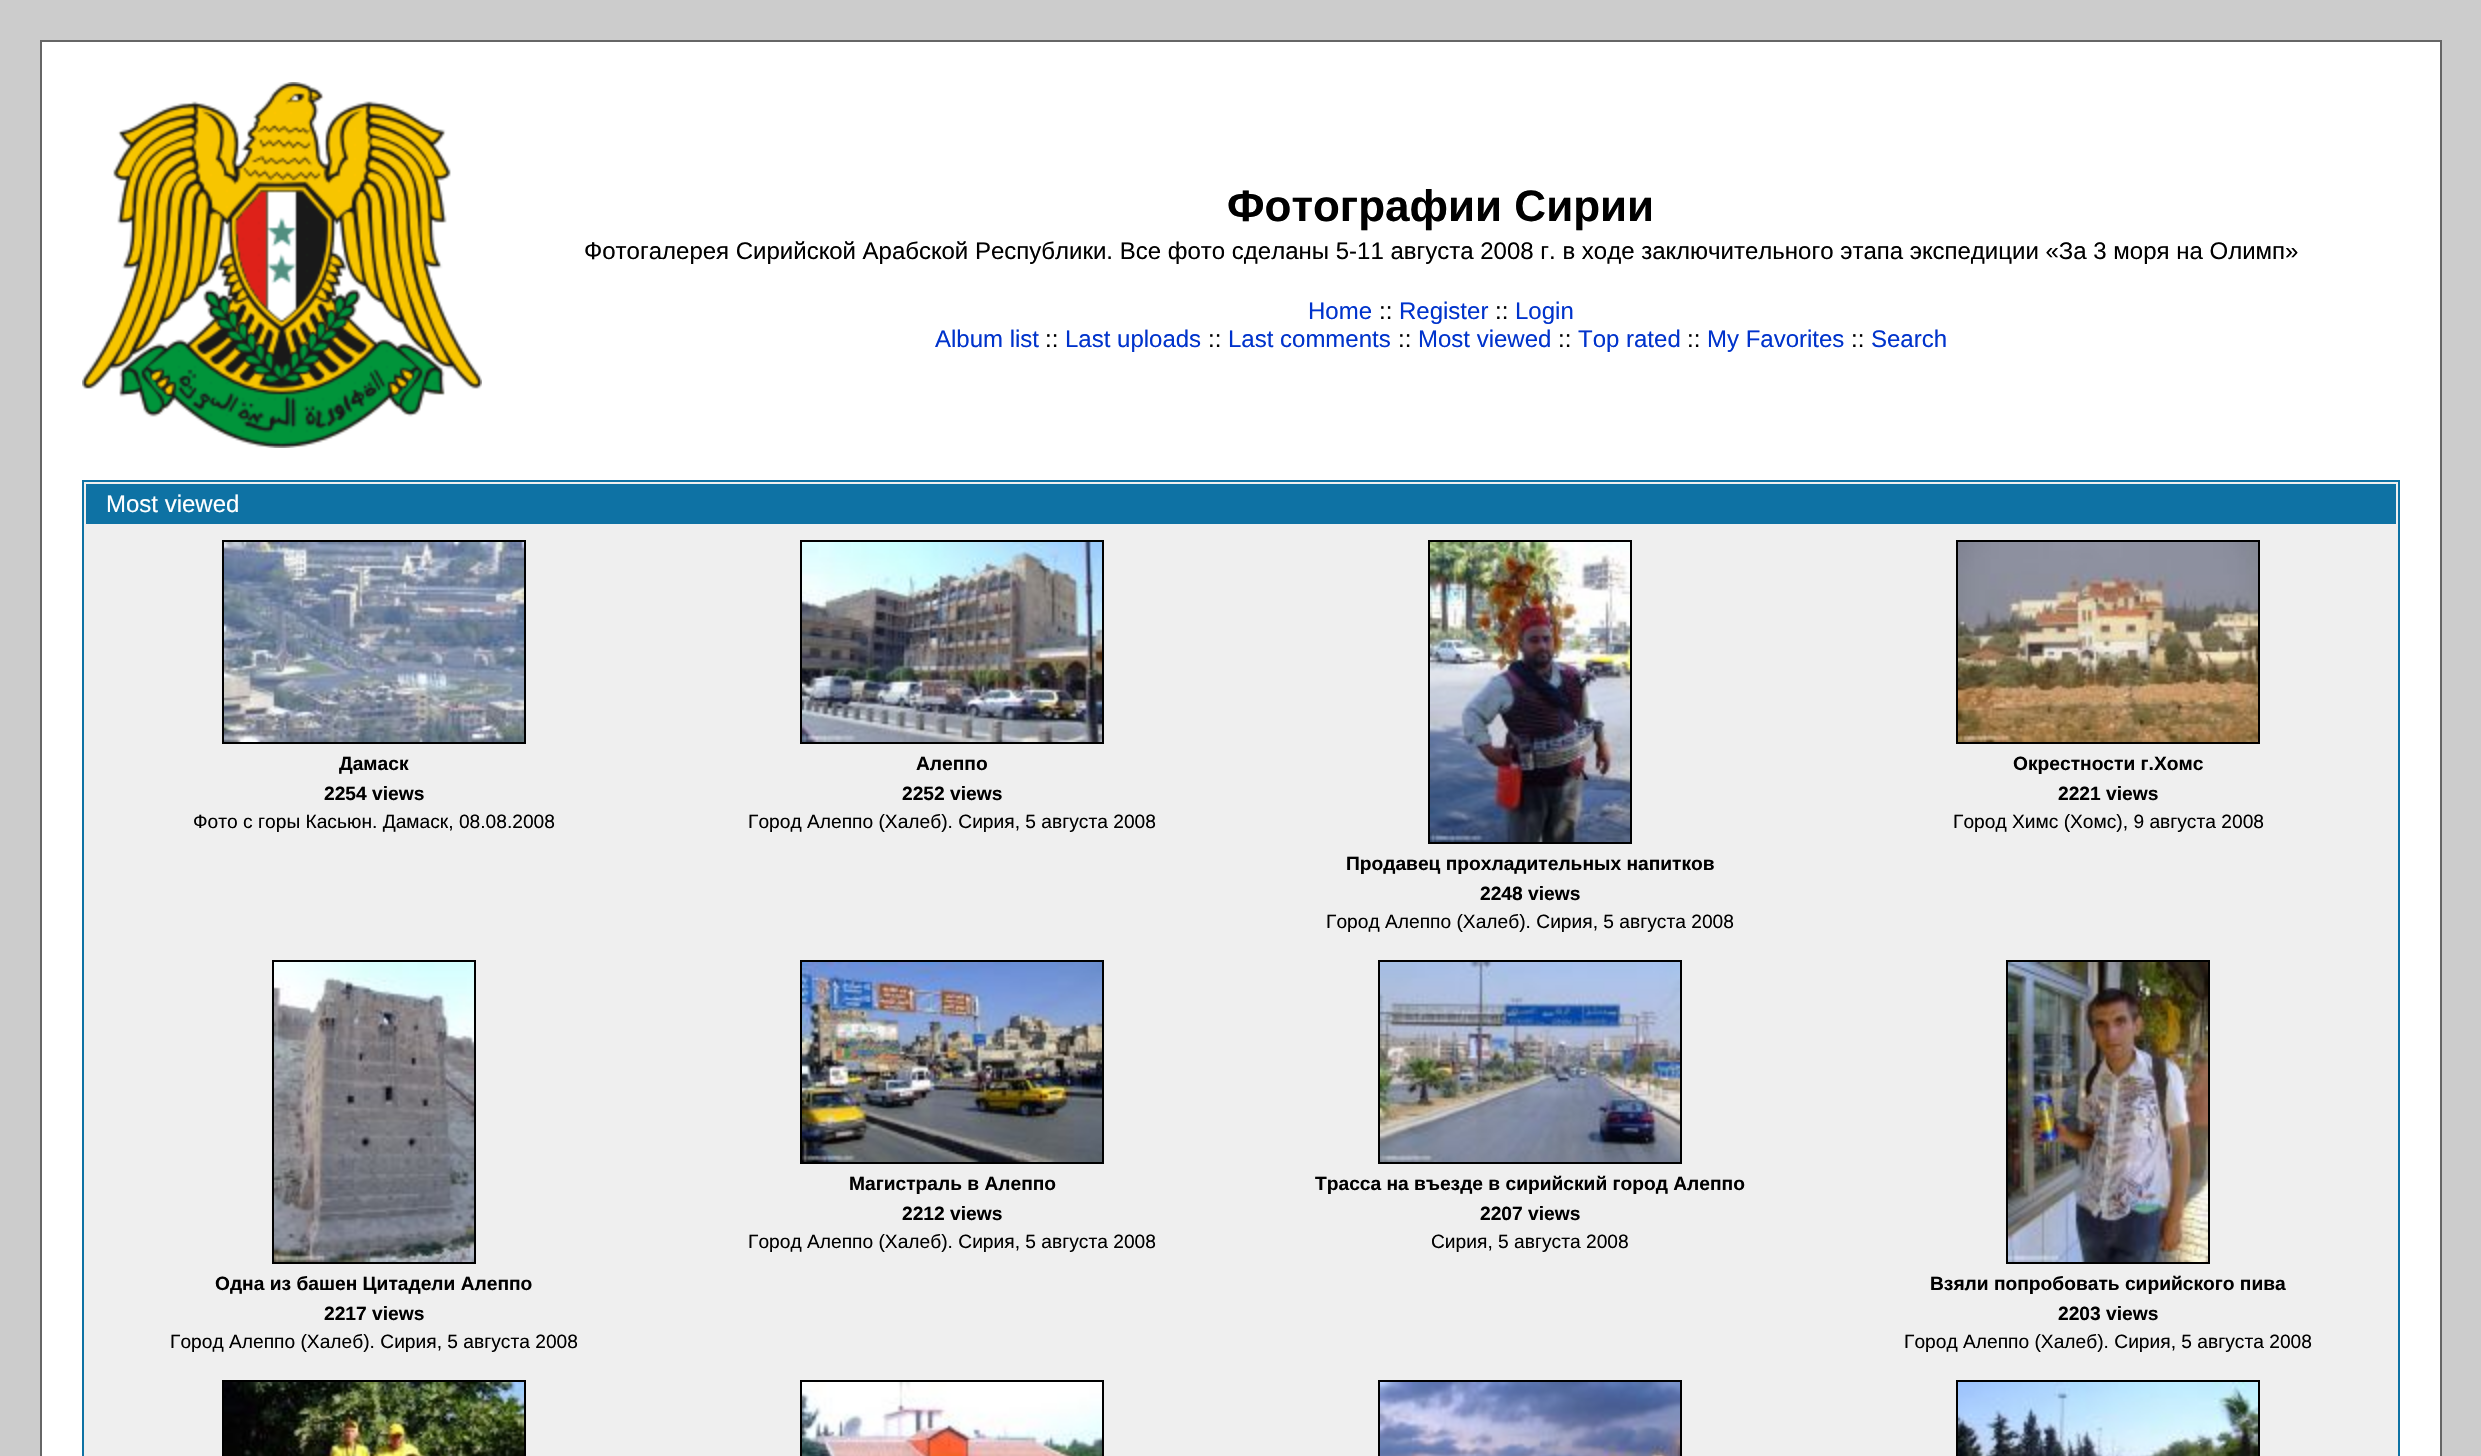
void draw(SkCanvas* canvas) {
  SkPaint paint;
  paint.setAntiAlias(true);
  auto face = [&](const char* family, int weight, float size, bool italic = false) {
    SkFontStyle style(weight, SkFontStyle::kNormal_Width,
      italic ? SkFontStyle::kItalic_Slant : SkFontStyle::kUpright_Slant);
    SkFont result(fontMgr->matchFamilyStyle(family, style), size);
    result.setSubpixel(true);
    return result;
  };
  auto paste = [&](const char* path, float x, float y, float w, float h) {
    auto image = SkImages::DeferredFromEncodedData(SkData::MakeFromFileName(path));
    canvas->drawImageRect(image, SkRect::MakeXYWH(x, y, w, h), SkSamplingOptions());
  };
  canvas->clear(0xffcccccc);
  paint.setColor(0xffffffff);
  canvas->drawRect(SkRect::MakeXYWH(41, 41, 2400, 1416), paint);
  paint.setStroke(true);
  paint.setStrokeWidth(2);
  paint.setColor(0xff666666);
  canvas->drawRect(SkRect::MakeXYWH(41, 41, 2400, 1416), paint);
  paste("img/1.png", 82, 82, 400, 366);
  paint.setStroke(false);
  paint.setColor(0xffefefef);
  canvas->drawRect(SkRect::MakeXYWH(83, 481, 2316, 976), paint);
  paint.setStroke(true);
  paint.setColor(0xff0e72a4);
  canvas->drawRect(SkRect::MakeXYWH(83, 481, 2316, 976), paint);
  paint.setStroke(false);
  canvas->drawRect(SkRect::MakeXYWH(86, 484, 2310, 40), paint);
  paint.setStroke(true);
  paint.setColor(0xff000000);
  canvas->drawRect(SkRect::MakeXYWH(223, 541, 302, 202), paint);
  paste("img/2.png", 224, 542, 300, 200);
  canvas->drawRect(SkRect::MakeXYWH(801, 541, 302, 202), paint);
  paste("img/3.png", 802, 542, 300, 200);
  canvas->drawRect(SkRect::MakeXYWH(1957, 541, 302, 202), paint);
  paste("img/4.png", 1958, 542, 300, 200);
  canvas->drawRect(SkRect::MakeXYWH(1429, 541, 202, 302), paint);
  paste("img/5.png", 1430, 542, 200, 300);
  canvas->drawRect(SkRect::MakeXYWH(801, 961, 302, 202), paint);
  paste("img/6.png", 802, 962, 300, 200);
  canvas->drawRect(SkRect::MakeXYWH(1379, 961, 302, 202), paint);
  paste("img/7.png", 1380, 962, 300, 200);
  canvas->drawRect(SkRect::MakeXYWH(273, 961, 202, 302), paint);
  paste("img/8.png", 274, 962, 200, 300);
  canvas->drawRect(SkRect::MakeXYWH(2007, 961, 202, 302), paint);
  paste("img/9.png", 2008, 962, 200, 300);
  canvas->drawRect(SkRect::MakeXYWH(223, 1381, 302, 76), paint);
  paste("img/10.png", 224, 1382, 300, 74);
  canvas->drawRect(SkRect::MakeXYWH(801, 1381, 302, 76), paint);
  paste("img/11.png", 802, 1382, 300, 74);
  canvas->drawRect(SkRect::MakeXYWH(1379, 1381, 302, 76), paint);
  paste("img/12.png", 1380, 1382, 300, 74);
  canvas->drawRect(SkRect::MakeXYWH(1957, 1381, 302, 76), paint);
  paste("img/13.png", 1958, 1382, 300, 74);
  auto f0 = face("Liberation Sans", 700, 44);
  paint.setStroke(false);
  canvas->drawString("Фотографии Сирии", 1227, 221, f0, paint);
  auto f1 = face("Liberation Sans", 400, 24);
  canvas->drawString("Фотогалерея Сирийской Арабской Республики. Все фото сделаны 5-11 августа 2008 г. в ходе заключительного этапа экспедиции «За 3 моря на Олимп»", 584, 259, f1, paint);
  paint.setColor(0xff0033cc);
  canvas->drawString("Home", 1308, 319, f1, paint);
  paint.setColor(0xff000000);
  canvas->drawString("::", 1379, 319, f1, paint);
  paint.setColor(0xff0033cc);
  canvas->drawString("Register", 1399, 319, f1, paint);
  paint.setColor(0xff000000);
  canvas->drawString("::", 1495, 319, f1, paint);
  paint.setColor(0xff0033cc);
  canvas->drawString("Login", 1515, 319, f1, paint);
  canvas->drawString("Album list", 935, 347, f1, paint);
  paint.setColor(0xff000000);
  canvas->drawString("::", 1045, 347, f1, paint);
  paint.setColor(0xff0033cc);
  canvas->drawString("Last uploads", 1065, 347, f1, paint);
  paint.setColor(0xff000000);
  canvas->drawString("::", 1208, 347, f1, paint);
  paint.setColor(0xff0033cc);
  canvas->drawString("Last comments", 1228, 347, f1, paint);
  paint.setColor(0xff000000);
  canvas->drawString("::", 1398, 347, f1, paint);
  paint.setColor(0xff0033cc);
  canvas->drawString("Most viewed", 1418, 347, f1, paint);
  paint.setColor(0xff000000);
  canvas->drawString("::", 1558, 347, f1, paint);
  paint.setColor(0xff0033cc);
  canvas->drawString("Top rated", 1578, 347, f1, paint);
  paint.setColor(0xff000000);
  canvas->drawString("::", 1687, 347, f1, paint);
  paint.setColor(0xff0033cc);
  canvas->drawString("My Favorites", 1707, 347, f1, paint);
  paint.setColor(0xff000000);
  canvas->drawString("::", 1851, 347, f1, paint);
  paint.setColor(0xff0033cc);
  canvas->drawString("Search", 1871, 347, f1, paint);
  paint.setColor(0xffffffff);
  canvas->drawString("Most viewed", 106, 512, f1, paint);
  auto f2 = face("Liberation Sans", 700, 19.2f);
  paint.setColor(0xff000000);
  canvas->drawString("Дамаск", 339, 770, f2, paint);
  canvas->drawString("2254 views", 324, 800, f2, paint);
  auto f3 = face("Liberation Sans", 400, 19.2f);
  canvas->drawString("Фото с горы Касьюн. Дамаск, 08.08.2008", 193, 828, f3, paint);
  canvas->drawString("Алеппо", 916, 770, f2, paint);
  canvas->drawString("2252 views", 902, 800, f2, paint);
  canvas->drawString("Город Алеппо (Халеб). Сирия, 5 августа 2008", 748, 828, f3, paint);
  canvas->drawString("Окрестности г.Хомс", 2013, 770, f2, paint);
  canvas->drawString("2221 views", 2058, 800, f2, paint);
  canvas->drawString("Город Химс (Хомс), 9 августа 2008", 1953, 828, f3, paint);
  canvas->drawString("Продавец прохладительных напитков", 1346, 870, f2, paint);
  canvas->drawString("2248 views", 1480, 900, f2, paint);
  canvas->drawString("Город Алеппо (Халеб). Сирия, 5 августа 2008", 1326, 928, f3, paint);
  canvas->drawString("Магистраль в Алеппо", 849, 1190, f2, paint);
  canvas->drawString("2212 views", 902, 1220, f2, paint);
  canvas->drawString("Город Алеппо (Халеб). Сирия, 5 августа 2008", 748, 1248, f3, paint);
  canvas->drawString("Трасса на въезде в сирийский город Алеппо", 1315, 1190, f2, paint);
  canvas->drawString("2207 views", 1480, 1220, f2, paint);
  canvas->drawString("Сирия, 5 августа 2008", 1431, 1248, f3, paint);
  canvas->drawString("Одна из башен Цитадели Алеппо", 215, 1290, f2, paint);
  canvas->drawString("2217 views", 324, 1320, f2, paint);
  canvas->drawString("Город Алеппо (Халеб). Сирия, 5 августа 2008", 170, 1348, f3, paint);
  canvas->drawString("Взяли попробовать сирийского пива", 1930, 1290, f2, paint);
  canvas->drawString("2203 views", 2058, 1320, f2, paint);
  canvas->drawString("Город Алеппо (Халеб). Сирия, 5 августа 2008", 1904, 1348, f3, paint);
}
